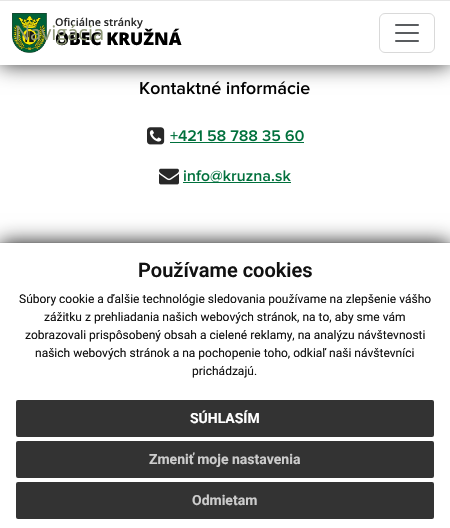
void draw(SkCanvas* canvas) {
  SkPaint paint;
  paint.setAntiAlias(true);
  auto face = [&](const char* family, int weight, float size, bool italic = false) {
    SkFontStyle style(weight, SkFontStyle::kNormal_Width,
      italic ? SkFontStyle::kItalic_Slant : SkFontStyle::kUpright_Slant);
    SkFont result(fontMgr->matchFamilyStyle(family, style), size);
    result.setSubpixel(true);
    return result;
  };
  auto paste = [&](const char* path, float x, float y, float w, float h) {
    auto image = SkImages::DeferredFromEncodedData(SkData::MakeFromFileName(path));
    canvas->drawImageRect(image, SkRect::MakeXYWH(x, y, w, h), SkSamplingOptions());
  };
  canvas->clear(0xfff1f1f1);
  paint.setColor(0xffffffff);
  canvas->drawRect(SkRect::MakeXYWH(0, 65, 450, 177), paint);
  paste("img/3.png", 140, 81, 170, 14);
  paint.setColor(0xff333333);
  paint.setMaskFilter(SkMaskFilter::MakeBlur(kNormal_SkBlurStyle, 10));
  canvas->drawRect(SkRect::MakeXYWH(0, 0, 450, 65), paint);
  paint.setMaskFilter(nullptr);
  paint.setColor(0xffffffff);
  canvas->drawRect(SkRect::MakeXYWH(0, 1, 450, 64), paint);
  paint.setColor(0xffe6e6e6);
  canvas->drawRect(SkRect::MakeXYWH(0, 0, 450, 1), paint);
  paste("img/1.png", 12, 13, 35, 40);
  paint.setStroke(true);
  paint.setStrokeWidth(1);
  paint.setColor(0xffd9d9d9);
  canvas->drawRoundRect(SkRect::MakeXYWH(379.5f, 13.5f, 55, 39), 5.5f, 5.5f, paint);
  paste("img/2.png", 395, 24, 24, 18);
  paste("img/4.png", 147, 127, 18, 18);
  paste("img/5.png", 170, 130, 134, 12);
  paint.setStroke(false);
  paint.setColor(0xff00703c);
  canvas->drawRect(SkRect::MakeXYWH(170, 142, 134, 1), paint);
  paste("img/6.png", 159, 168, 20, 17);
  paste("img/7.png", 183, 170, 108, 12);
  canvas->drawRect(SkRect::MakeXYWH(183, 182, 108, 1), paint);
  paint.setColor(0xff111111);
  paint.setMaskFilter(SkMaskFilter::MakeBlur(kNormal_SkBlurStyle, 10));
  canvas->drawRect(SkRect::MakeXYWH(0, 243, 450, 285), paint);
  paint.setMaskFilter(nullptr);
  paint.setColor(0xffffffff);
  canvas->drawRect(SkRect::MakeXYWH(0, 243, 450, 285), paint);
  paint.setColor(0xff333333);
  canvas->drawRoundRect(SkRect::MakeXYWH(16, 400, 418, 37), 2, 2, paint);
  canvas->drawRoundRect(SkRect::MakeXYWH(16, 441, 418, 37), 2, 2, paint);
  canvas->drawRoundRect(SkRect::MakeXYWH(16, 482, 418, 37), 2, 2, paint);
  auto f0 = face("Open Sans", 600, 10.75f);
  paint.setColor(0xff282828);
  canvas->drawString("Oficiálne stránky", 55, 26, f0, paint);
  auto f1 = face("Open Sans", 800, 17.5f);
  paint.setColor(0xff000000);
  canvas->drawString("OBEC KRUŽNÁ", 55, 45, f1, paint);
  auto f2 = face("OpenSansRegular", 400, 20);
  paint.setColor(0xff909979);
  canvas->drawString("Navigácia", 15, 40, f2, paint);
  auto f3 = face("Roboto", 600, 20);
  paint.setColor(0xff111111);
  canvas->drawString("Používame cookies", 138, 277, f3, paint);
  auto f4 = face("Roboto", 400, 12);
  {
    const struct { const char* s; float x, y; } items[] = {
      {"Súbory cookie a ďalšie technológie sledovania používame na zlepšenie vášho", 19, 303},
      {"zážitku z prehliadania našich webových stránok, na to, aby sme vám", 44, 321},
      {"zobrazovali prispôsobený obsah a cielené reklamy, na analýzu návštevnosti", 25, 339},
      {"našich webových stránok a na pochopenie toho, odkiaľ naši návštevníci", 35, 357},
      {"prichádzajú.", 192, 375},
    };
    for (auto [s, x, y] : items) {
      canvas->drawString(s, x, y, f4, paint);
    }
  }
  auto f5 = face("Roboto", 700, 14);
  paint.setColor(0xffffffff);
  canvas->drawString("SÚHLASÍM", 190, 423, f5, paint);
  paint.setColor(0xffcccccc);
  canvas->drawString("Zmeniť moje nastavenia", 149, 464, f5, paint);
  canvas->drawString("Odmietam", 192, 505, f5, paint);
}
